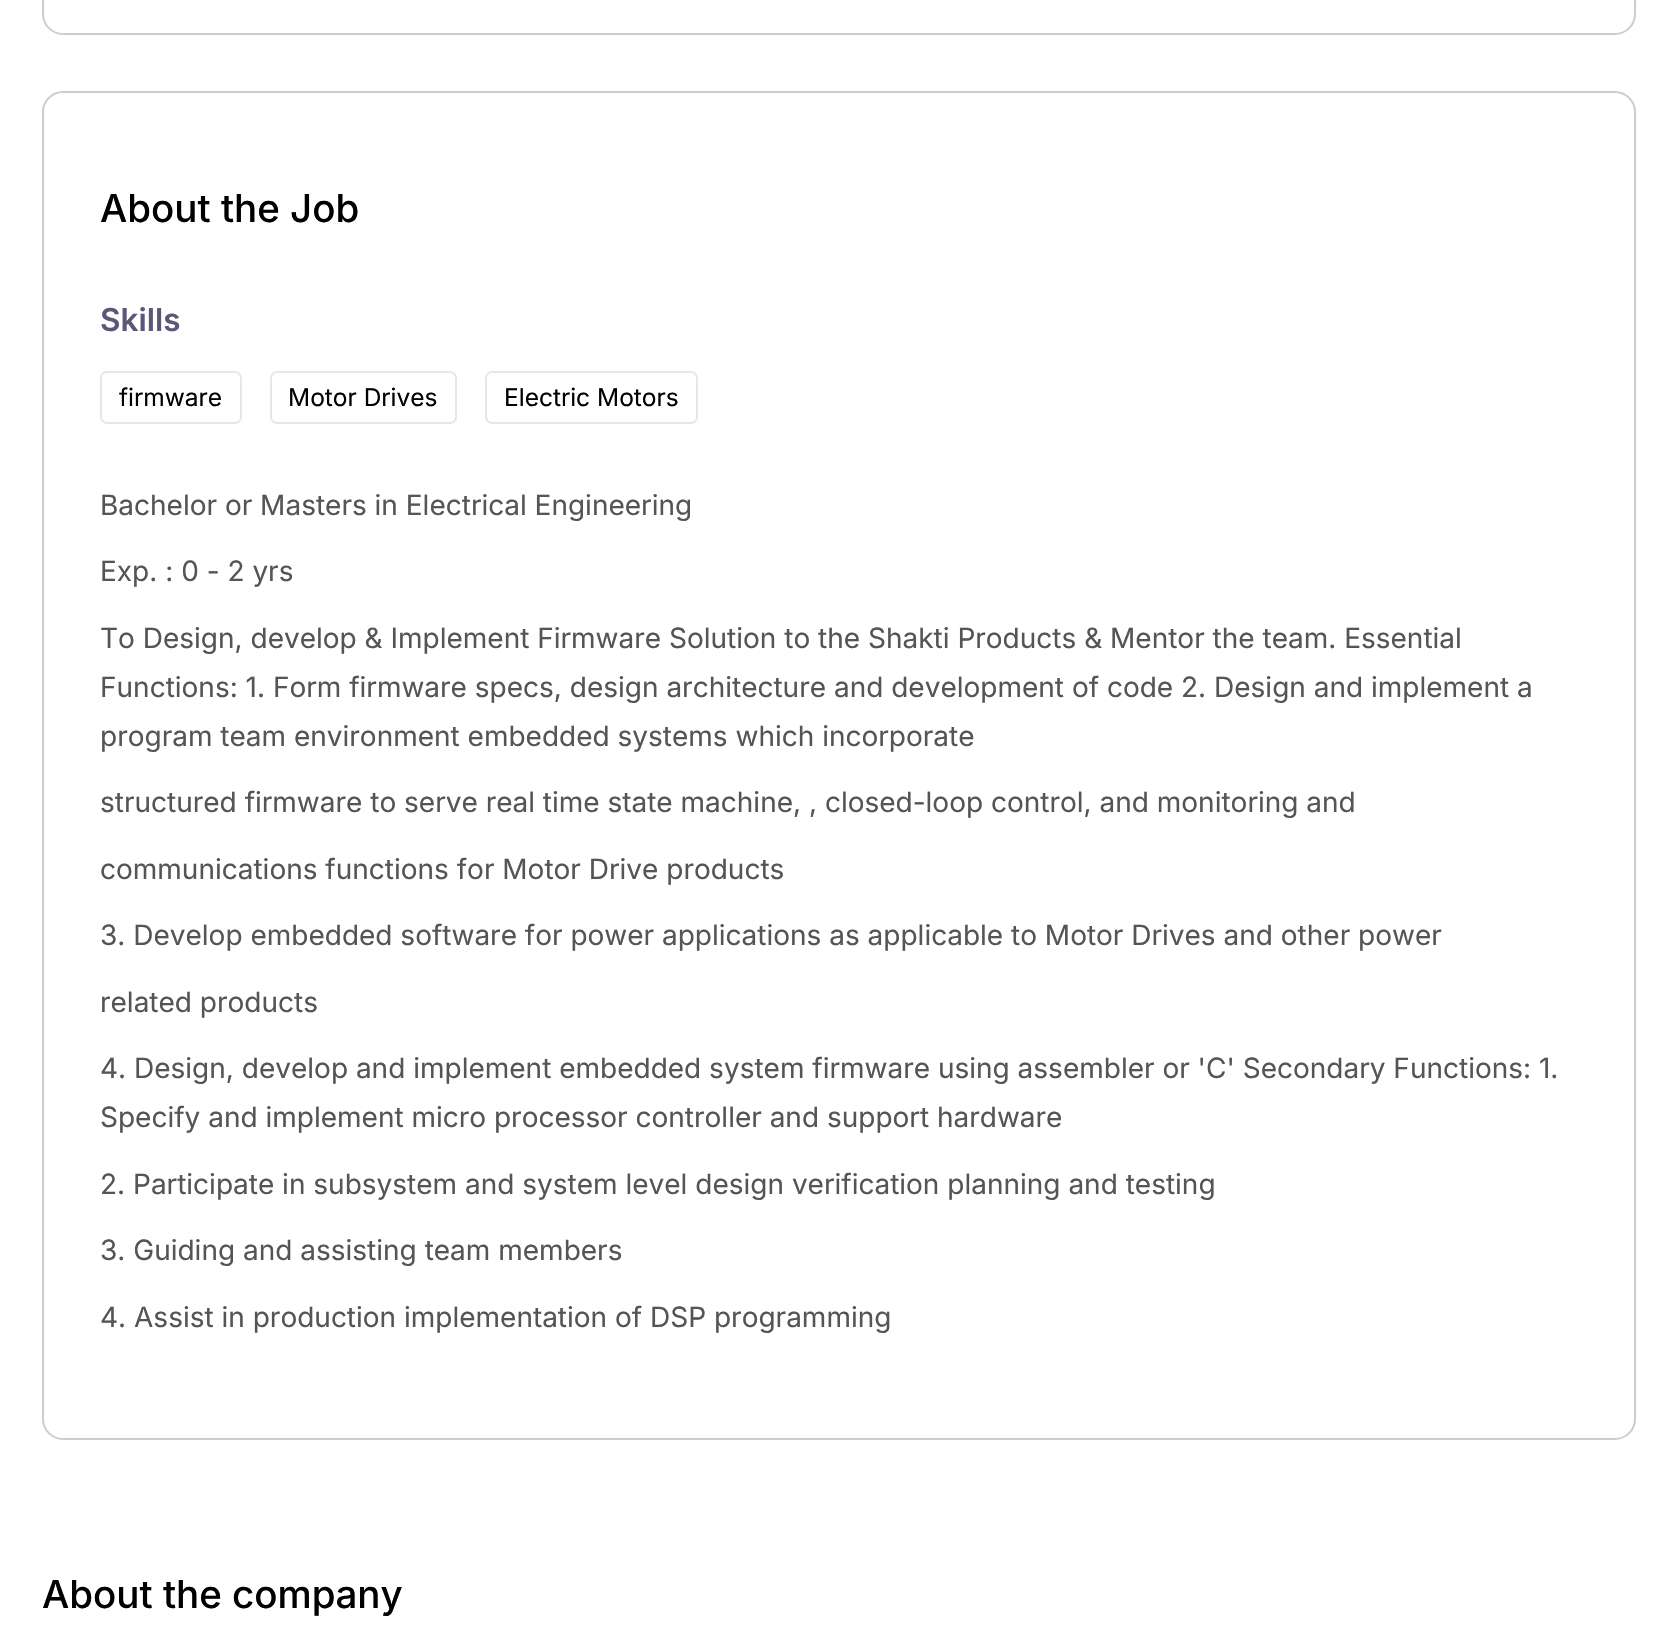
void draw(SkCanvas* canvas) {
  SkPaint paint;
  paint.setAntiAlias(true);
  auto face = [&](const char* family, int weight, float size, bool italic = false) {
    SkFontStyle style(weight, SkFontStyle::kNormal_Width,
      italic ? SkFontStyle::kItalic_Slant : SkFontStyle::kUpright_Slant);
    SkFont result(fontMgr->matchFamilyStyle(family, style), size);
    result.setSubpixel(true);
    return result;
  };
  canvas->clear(0xffffffff);
  paint.setStroke(true);
  paint.setStrokeWidth(2);
  paint.setColor(0xffcdcdcd);
  canvas->drawRoundRect(SkRect::MakeXYWH(43, -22, 1592, 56), 20, 20, paint);
  canvas->drawRoundRect(SkRect::MakeXYWH(43, 92, 1592, 1347), 20, 20, paint);
  paint.setColor(0xffe5e7eb);
  canvas->drawRoundRect(SkRect::MakeXYWH(101, 372, 140, 51), 6, 6, paint);
  canvas->drawRoundRect(SkRect::MakeXYWH(271, 372, 185, 51), 6, 6, paint);
  canvas->drawRoundRect(SkRect::MakeXYWH(486, 372, 211, 51), 6, 6, paint);
  auto f0 = face("Inter", 500, 38.5f);
  paint.setStroke(false);
  paint.setColor(0xff000000);
  canvas->drawString("About the Job", 100, 222, f0, paint);
  auto f1 = face("Inter", 600, 31.5f);
  paint.setColor(0xff5a5878);
  canvas->drawString("Skills", 100, 331, f1, paint);
  auto f2 = face("Inter", 400, 24.5f);
  paint.setColor(0xff000000);
  {
    const struct { const char* s; float x, y; } items[] = {
      {"firmware", 119, 406},
      {"Motor Drives", 288, 406},
      {"Electric Motors", 504, 406},
    };
    for (auto [s, x, y] : items) {
      canvas->drawString(s, x, y, f2, paint);
    }
  }
  auto f3 = face("Inter", 400, 28);
  paint.setColor(0xff555555);
  {
    const struct { const char* s; float x, y; } items[] = {
      {"Bachelor or Masters in Electrical Engineering", 100, 515},
      {"Exp. : 0 - 2 yrs", 100, 581},
      {"To Design, develop & Implement Firmware Solution to the Shakti Products & Mentor the team. Essential", 100, 648},
      {"Functions: 1. Form firmware specs, design architecture and development of code 2. Design and implement a", 100, 697},
      {"program team environment embedded systems which incorporate", 100, 746},
      {"structured firmware to serve real time state machine, , closed-loop control, and monitoring and", 100, 812},
      {"communications functions for Motor Drive products", 100, 879},
      {"3. Develop embedded software for power applications as applicable to Motor Drives and other power", 100, 945},
      {"related products", 100, 1012},
      {"4. Design, develop and implement embedded system firmware using assembler or 'C' Secondary Functions: 1.", 100, 1078},
      {"Specify and implement micro processor controller and support hardware", 100, 1127},
      {"2. Participate in subsystem and system level design verification planning and testing", 100, 1194},
      {"3. Guiding and assisting team members", 100, 1260},
      {"4. Assist in production implementation of DSP programming", 100, 1327},
    };
    for (auto [s, x, y] : items) {
      canvas->drawString(s, x, y, f3, paint);
    }
  }
  paint.setColor(0xff000000);
  canvas->drawString("About the company", 42, 1608, f0, paint);
}
